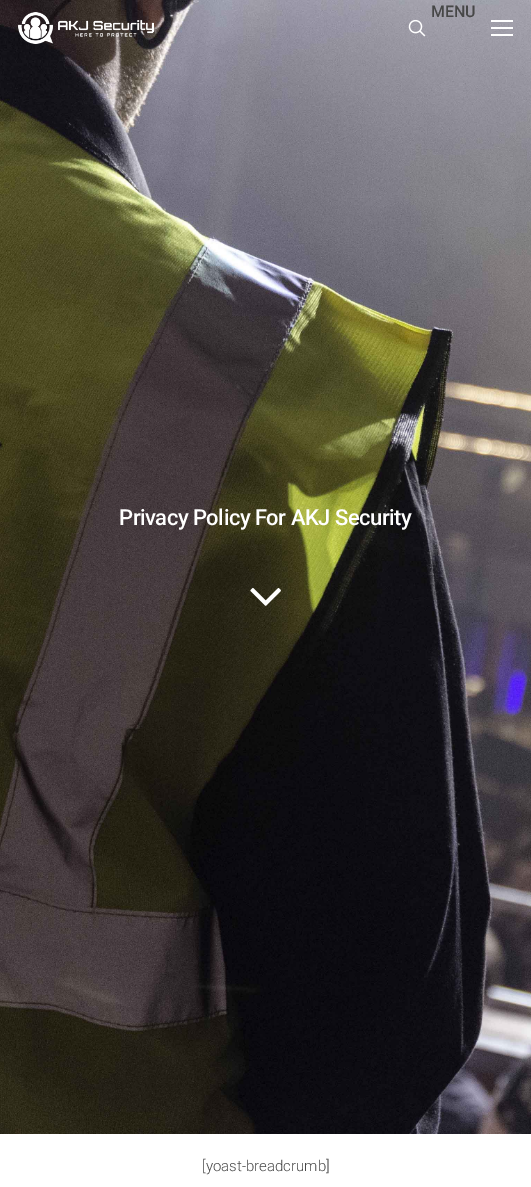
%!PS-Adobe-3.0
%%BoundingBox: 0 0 531 1187
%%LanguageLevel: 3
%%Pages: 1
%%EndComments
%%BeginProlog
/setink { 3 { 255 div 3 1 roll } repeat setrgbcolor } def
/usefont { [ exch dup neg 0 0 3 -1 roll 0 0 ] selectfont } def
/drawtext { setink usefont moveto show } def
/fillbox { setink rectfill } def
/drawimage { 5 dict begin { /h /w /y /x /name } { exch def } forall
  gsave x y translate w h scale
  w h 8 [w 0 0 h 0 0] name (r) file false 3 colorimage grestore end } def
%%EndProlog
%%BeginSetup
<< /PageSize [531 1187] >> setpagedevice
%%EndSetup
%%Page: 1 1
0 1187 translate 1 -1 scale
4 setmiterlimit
0 0 531 1187 255 255 255 fillbox
(assets/img3.rgb) 0 0 531 1134 drawimage
(assets/img1.rgb) 18 12 136 32 drawimage
(MENU) 431 17 /Roboto-Medium 16 71 71 71 drawtext
491 20 22 2 255 255 255 fillbox
491 34 22 2 255 255 255 fillbox
491 27 22 2 255 255 255 fillbox
(assets/img2.rgb) 408 19 18 18 drawimage
/Roboto-Medium 22 usefont
119 525 moveto -0.5 0 (Privacy Policy For AKJ Security) ashow
(assets/img4.rgb) 250 588 31 18 drawimage
([yoast-breadcrumb]) 202 1171 /Roboto-Light 15 71 71 71 drawtext
showpage
%%EOF
